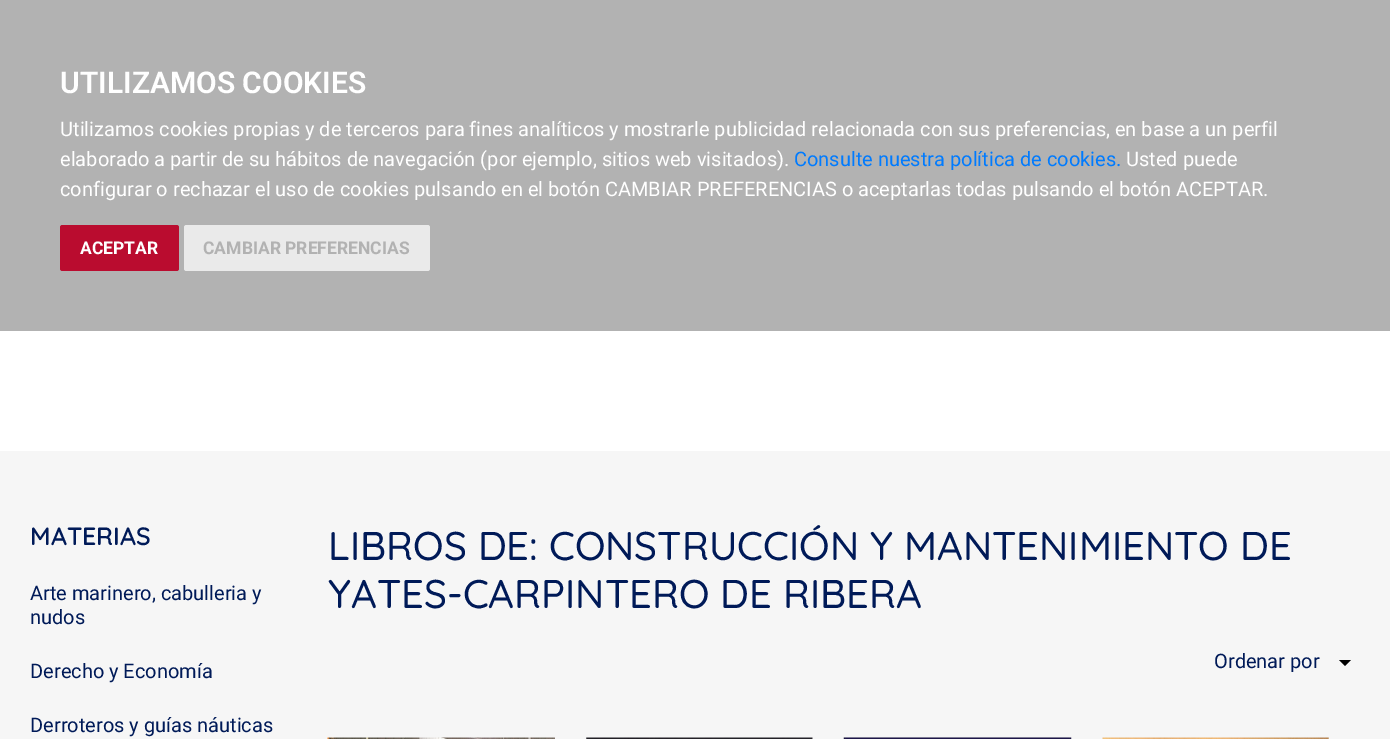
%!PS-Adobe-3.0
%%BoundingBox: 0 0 1390 739
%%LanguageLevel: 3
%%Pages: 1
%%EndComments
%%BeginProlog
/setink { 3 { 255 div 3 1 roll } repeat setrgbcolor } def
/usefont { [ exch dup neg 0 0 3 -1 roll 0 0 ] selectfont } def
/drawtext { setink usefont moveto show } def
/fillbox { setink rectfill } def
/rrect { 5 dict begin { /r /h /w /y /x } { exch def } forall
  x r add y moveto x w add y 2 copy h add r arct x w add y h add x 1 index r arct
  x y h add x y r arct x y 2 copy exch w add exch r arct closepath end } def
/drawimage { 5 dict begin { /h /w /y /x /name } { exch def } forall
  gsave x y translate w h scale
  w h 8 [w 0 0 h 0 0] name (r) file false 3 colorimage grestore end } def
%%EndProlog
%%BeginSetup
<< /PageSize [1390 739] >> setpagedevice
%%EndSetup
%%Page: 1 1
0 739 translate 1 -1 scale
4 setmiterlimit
0 0 1390 739 255 255 255 fillbox
0 0 1390 331 178 178 178 fillbox
(UTILIZAMOS COOKIES) 60 93 /Roboto-SemiBold 30 255 255 255 drawtext
(Utilizamos cookies propias y de terceros para fines analíticos y mostrarle publicidad relacionada con sus preferencias, en base a un perfil) 60 136 /Roboto-Regular 20 255 255 255 drawtext
(elaborado a partir de su hábitos de navegación \(por ejemplo, sitios web visitados\).) 60 166 /Roboto-Regular 20 255 255 255 drawtext
(Consulte nuestra política de cookies.) 794 166 /Roboto-Regular 20 0 123 255 drawtext
(Usted puede) 1126 166 /Roboto-Regular 20 255 255 255 drawtext
(configurar o rechazar el uso de cookies pulsando en el botón CAMBIAR PREFERENCIAS o aceptarlas todas pulsando el botón ACEPTAR.) 60 196 /Roboto-Regular 20 255 255 255 drawtext
186 12 47 setink
60 225 119 46 2.5 rrect fill
(ACEPTAR) 80 254 /Roboto-Bold 17.5 255 255 255 drawtext
234 234 234 setink
184 225 246 46 2.5 rrect fill
(CAMBIAR PREFERENCIAS) 203 254 /Roboto-Bold 17.5 178 178 178 drawtext
0 451 1390 288 246 246 246 fillbox
(MATERIAS) 30 545 /Quicksand-SemiBold 25 0 26 88 drawtext
(Arte marinero, cabulleria y) 30 600 /Roboto-Regular 20 0 26 88 drawtext
(nudos) 30 624 /Roboto-Regular 20 0 26 88 drawtext
(Derecho y Economía) 30 678 /Roboto-Regular 20 0 26 88 drawtext
(Derroteros y guías náuticas) 30 732 /Roboto-Regular 20 0 26 88 drawtext
(LIBROS DE: CONSTRUCCIÓN Y MANTENIMIENTO DE) 328 560 /Quicksand-Medium 40 0 26 88 drawtext
(YATES-CARPINTERO DE RIBERA) 328 608 /Quicksand-Medium 40 0 26 88 drawtext
0 0 0 setink
1339 660 moveto 1345 666 lineto 1351 660 lineto closepath fill
(Ordenar por) 1214 668 /Roboto-Regular 20 0 26 88 drawtext
(assets/img1.rgb) 327 737 228 2 drawimage
586 738 227 1 255 255 255 fillbox
(assets/img2.rgb) 586 737 227 2 drawimage
(assets/img3.rgb) 843 737 229 2 drawimage
(assets/img4.rgb) 1102 737 227 2 drawimage
showpage
%%EOF
